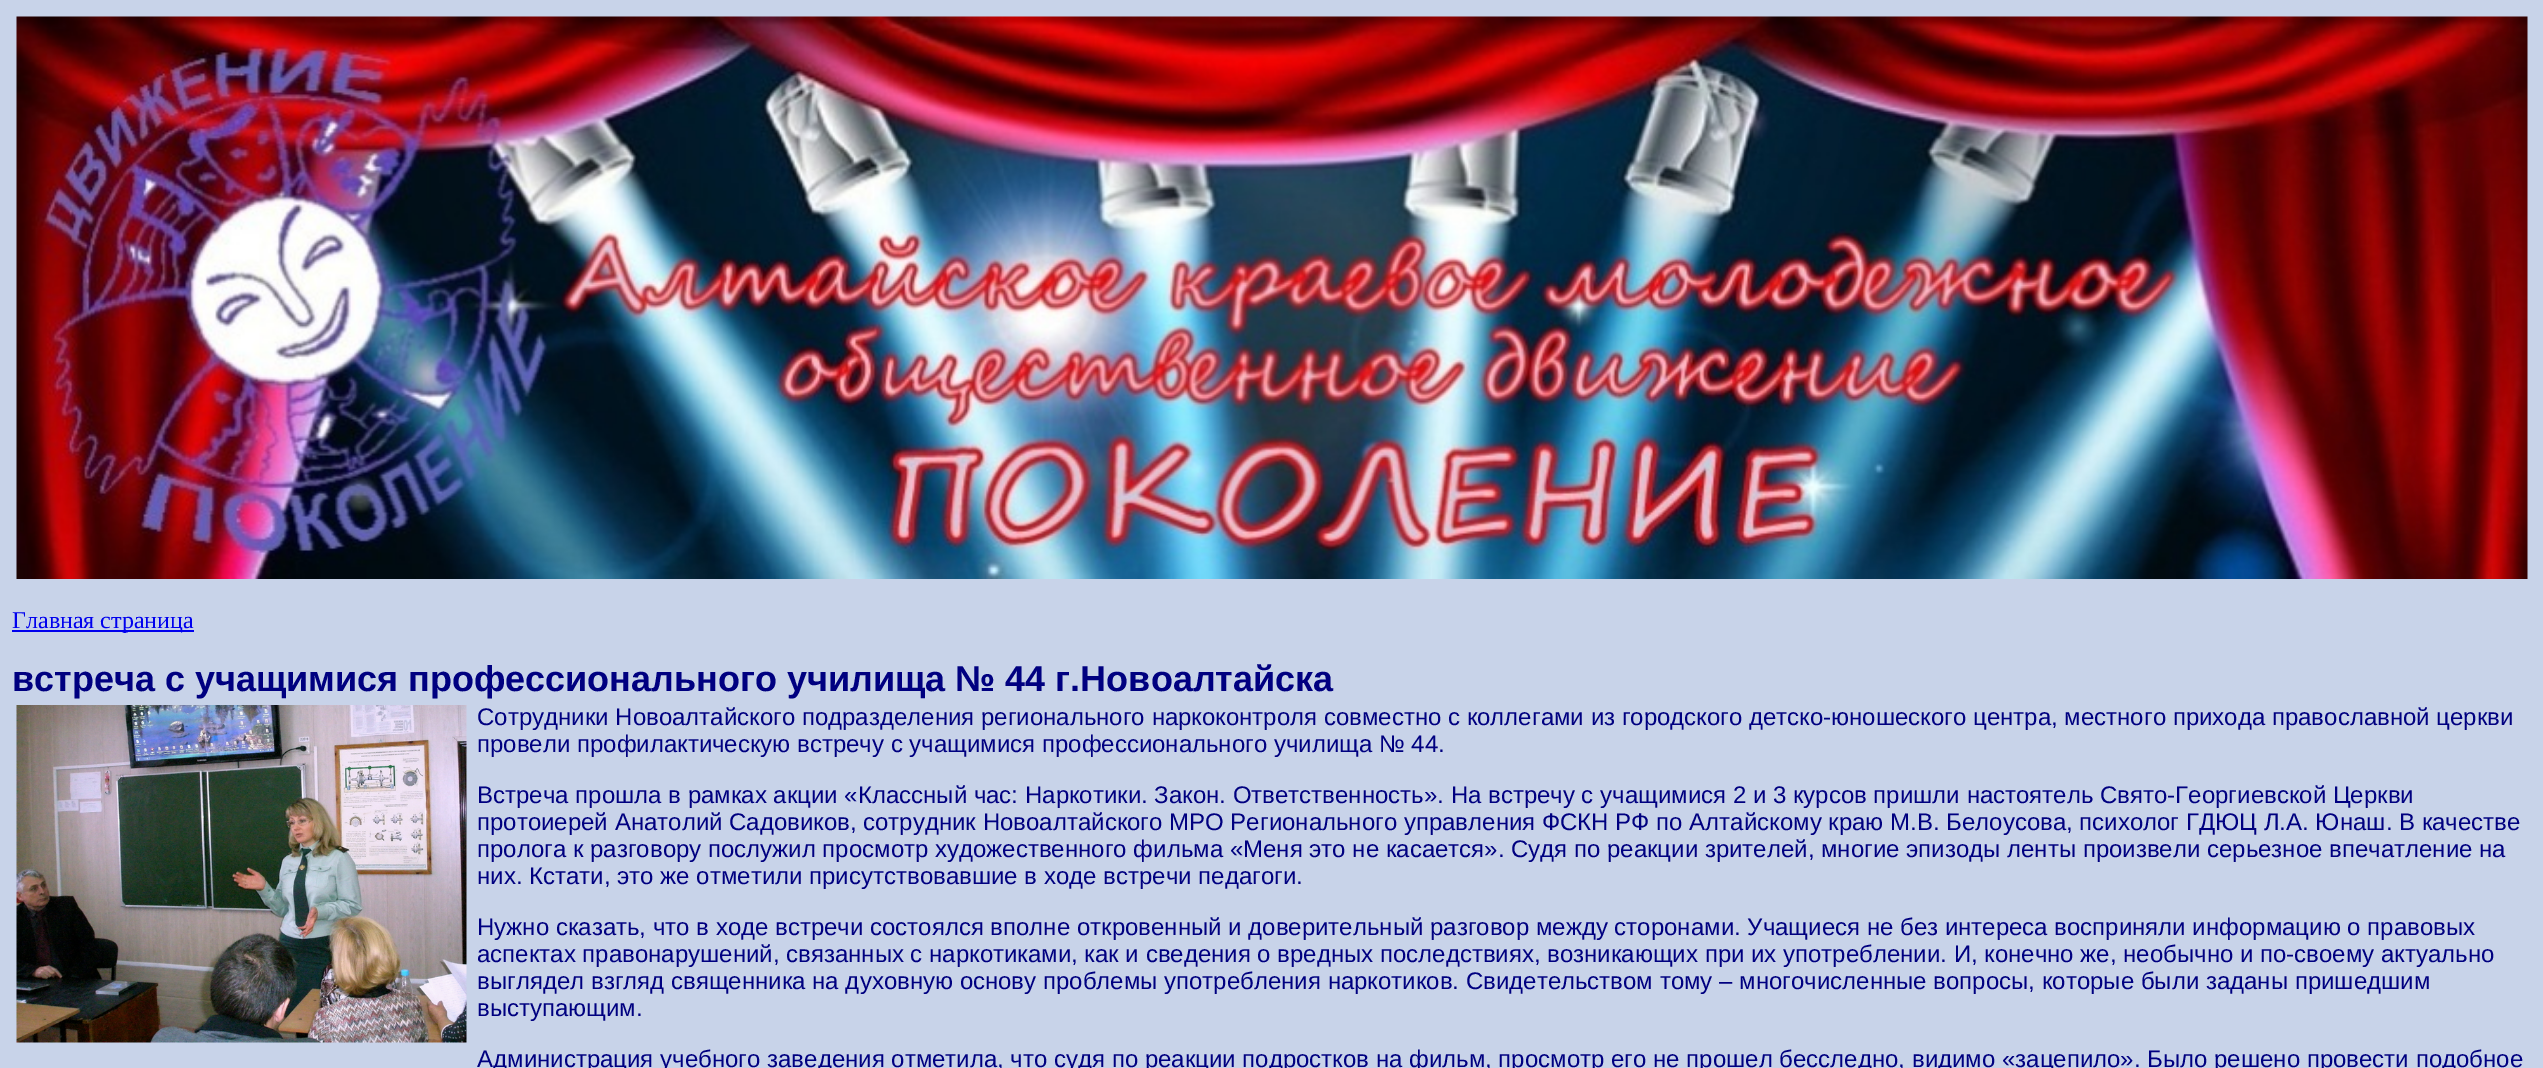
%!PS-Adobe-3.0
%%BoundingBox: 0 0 2543 1068
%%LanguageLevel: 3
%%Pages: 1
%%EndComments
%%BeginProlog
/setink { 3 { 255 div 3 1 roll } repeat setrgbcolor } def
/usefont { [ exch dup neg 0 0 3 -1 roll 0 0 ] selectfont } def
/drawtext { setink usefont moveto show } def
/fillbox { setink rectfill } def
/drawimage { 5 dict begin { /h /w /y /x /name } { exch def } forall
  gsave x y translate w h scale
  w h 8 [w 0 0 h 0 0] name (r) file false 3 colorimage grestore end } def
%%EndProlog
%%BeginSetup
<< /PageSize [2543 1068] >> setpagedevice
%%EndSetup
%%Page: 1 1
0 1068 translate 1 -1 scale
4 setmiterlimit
0 0 2543 1068 200 211 233 fillbox
(assets/img1.rgb) 16 16 2512 563 drawimage
12 630 182 2 0 0 238 fillbox
(Главная страница) 12 628 /LiberationSerif-Regular 24 0 0 238 drawtext
(встреча с учащимися профессионального училища № 44 г.Новоалтайска) 12 691 /LiberationSans-Bold 36 0 0 128 drawtext
(assets/img2.rgb) 16 705 451 338 drawimage
(Сотрудники Новоалтайского подразделения регионального наркоконтроля совместно с коллегами из городского детско-юношеского центра, местного прихода православной церкви) 477 725 /LiberationSans-Regular 24 0 0 128 drawtext
(провели профилактическую встречу с учащимися профессионального училища № 44.) 477 752 /LiberationSans-Regular 24 0 0 128 drawtext
(Встреча прошла в рамках акции «Классный час: Наркотики. Закон. Ответственность». На встречу с учащимися 2 и 3 курсов пришли настоятель Свято-Георгиевской Церкви) 477 803 /LiberationSans-Regular 24 0 0 128 drawtext
(протоиерей Анатолий Садовиков, сотрудник Новоалтайского МРО Регионального управления ФСКН РФ по Алтайскому краю М.В. Белоусова, психолог ГДЮЦ Л.А. Юнаш. В качестве) 477 830 /LiberationSans-Regular 24 0 0 128 drawtext
(пролога к разговору послужил просмотр художественного фильма «Меня это не касается». Судя по реакции зрителей, многие эпизоды ленты произвели серьезное впечатление на) 477 857 /LiberationSans-Regular 24 0 0 128 drawtext
(них. Кстати, это же отметили присутствовавшие в ходе встречи педагоги.) 477 884 /LiberationSans-Regular 24 0 0 128 drawtext
(Нужно сказать, что в ходе встречи состоялся вполне откровенный и доверительный разговор между сторонами. Учащиеся не без интереса восприняли информацию о правовых) 477 935 /LiberationSans-Regular 24 0 0 128 drawtext
(аспектах правонарушений, связанных с наркотиками, как и сведения о вредных последствиях, возникающих при их употреблении. И, конечно же, необычно и по-своему актуально) 477 962 /LiberationSans-Regular 24 0 0 128 drawtext
(выглядел взгляд священника на духовную основу проблемы употребления наркотиков. Свидетельством тому – многочисленные вопросы, которые были заданы пришедшим) 477 989 /LiberationSans-Regular 24 0 0 128 drawtext
(выступающим.) 477 1016 /LiberationSans-Regular 24 0 0 128 drawtext
(Администрация учебного заведения отметила, что судя по реакции подростков на фильм, просмотр его не прошел бесследно, видимо «зацепило». Было решено провести подобное) 477 1067 /LiberationSans-Regular 24 0 0 128 drawtext
showpage
%%EOF
